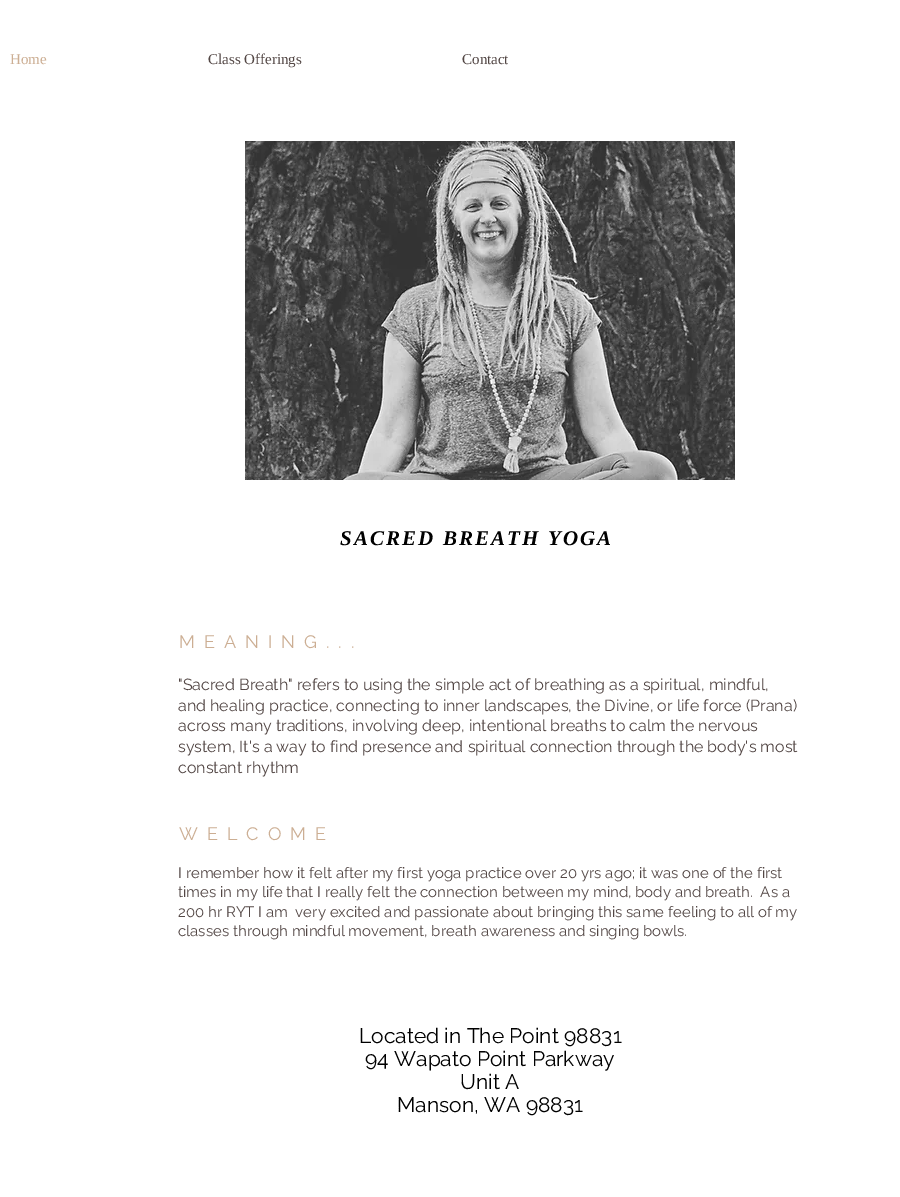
%!PS-Adobe-3.0
%%BoundingBox: 0 0 900 1197
%%LanguageLevel: 3
%%Pages: 1
%%EndComments
%%BeginProlog
/setink { 3 { 255 div 3 1 roll } repeat setrgbcolor } def
/usefont { [ exch dup neg 0 0 3 -1 roll 0 0 ] selectfont } def
/drawtext { setink usefont moveto show } def
/fillbox { setink rectfill } def
/drawimage { 5 dict begin { /h /w /y /x /name } { exch def } forall
  gsave x y translate w h scale
  w h 8 [w 0 0 h 0 0] name (r) file false 3 colorimage grestore end } def
%%EndProlog
%%BeginSetup
<< /PageSize [900 1197] >> setpagedevice
%%EndSetup
%%Page: 1 1
0 1197 translate 1 -1 scale
4 setmiterlimit
0 0 900 1197 255 255 255 fillbox
(Home) 10 64 /LiberationSerif-Regular 15 204 174 147 drawtext
(Class Offerings) 208 64 /LiberationSerif-Regular 15 83 71 69 drawtext
(Contact) 462 64 /LiberationSerif-Regular 15 83 71 69 drawtext
(assets/img1.rgb) 245 141 490 339 drawimage
/LiberationSerif-BoldItalic 21 usefont
0 0 0 setink
340 545 moveto 2.1 0 (SACRED BREATH YOGA) ashow
/Raleway-Regular 18 usefont
204 174 147 setink
179 648 moveto 9 0 (MEANING...) ashow
("Sacred Breath" refers to using the simple act of breathing as a spiritual, mindful,) 178 690 /Raleway-Regular 16 83 71 69 drawtext
(and healing practice, connecting to inner landscapes, the Divine, or life force \(Prana\)) 178 711 /Raleway-Regular 16 83 71 69 drawtext
(across many traditions, involving deep, intentional breaths to calm the nervous) 178 731 /Raleway-Regular 16 83 71 69 drawtext
(system, It's a way to find presence and spiritual connection through the body's most) 178 752 /Raleway-Regular 16 83 71 69 drawtext
(constant rhythm) 178 773 /Raleway-Regular 16 83 71 69 drawtext
/Raleway-Regular 18 usefont
204 174 147 setink
179 840 moveto 9 0 (WELCOME) ashow
(I remember how it felt after my first yoga practice over 20 yrs ago; it was one of the first) 178 878 /Raleway-Regular 15 83 71 69 drawtext
(times in my life that I really felt the connection between my mind, body and breath.  As a) 178 897 /Raleway-Regular 15 83 71 69 drawtext
(200 hr RYT I am  very excited and passionate about bringing this same feeling to all of my) 178 917 /Raleway-Regular 15 83 71 69 drawtext
(classes through mindful movement, breath awareness and singing bowls.) 178 936 /Raleway-Regular 15 83 71 69 drawtext
(Located in The Point 98831) 359 1043 /Raleway-Regular 21 0 0 0 drawtext
(94 Wapato Point Parkway) 365 1066 /Raleway-Regular 21 0 0 0 drawtext
(Unit A) 460 1089 /Raleway-Regular 21 0 0 0 drawtext
(Manson, WA 98831) 397 1112 /Raleway-Regular 21 0 0 0 drawtext
showpage
%%EOF
